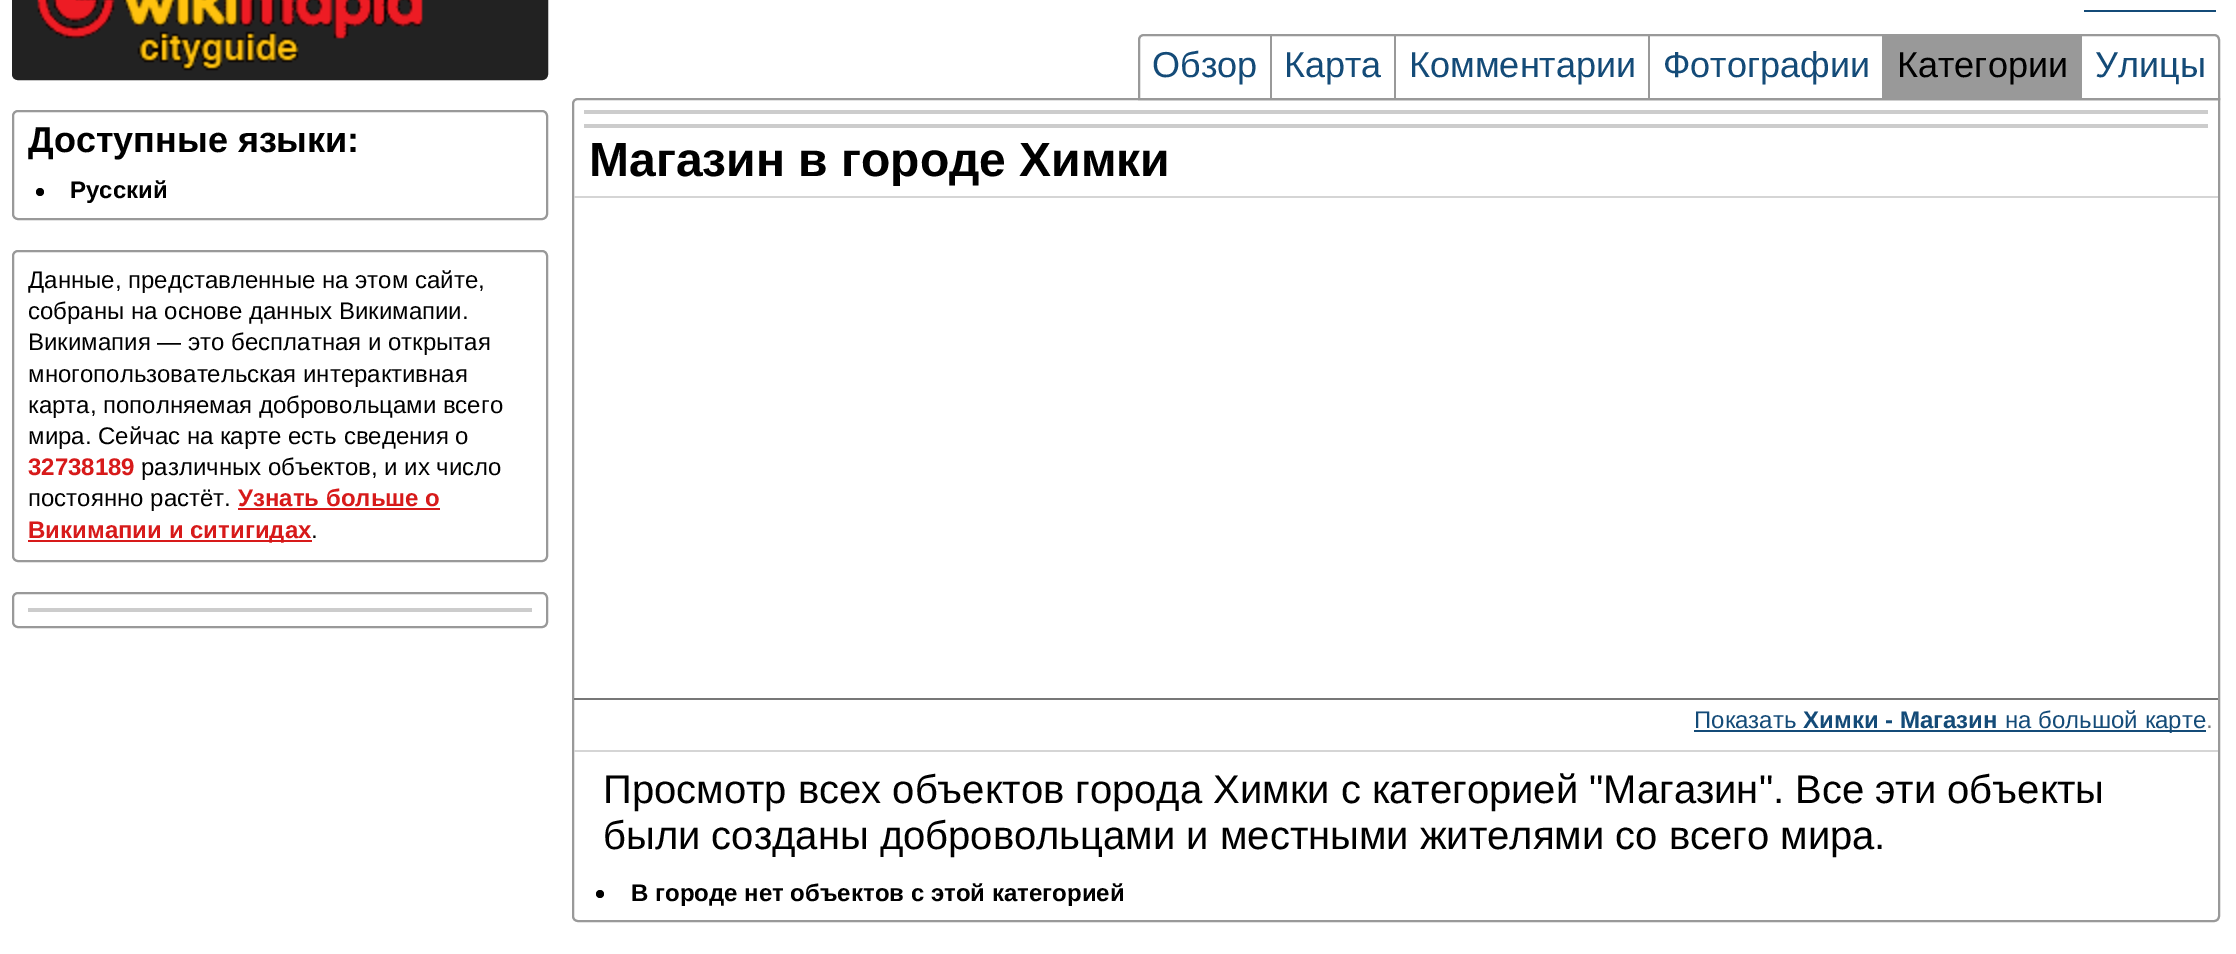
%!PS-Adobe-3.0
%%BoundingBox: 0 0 2236 954
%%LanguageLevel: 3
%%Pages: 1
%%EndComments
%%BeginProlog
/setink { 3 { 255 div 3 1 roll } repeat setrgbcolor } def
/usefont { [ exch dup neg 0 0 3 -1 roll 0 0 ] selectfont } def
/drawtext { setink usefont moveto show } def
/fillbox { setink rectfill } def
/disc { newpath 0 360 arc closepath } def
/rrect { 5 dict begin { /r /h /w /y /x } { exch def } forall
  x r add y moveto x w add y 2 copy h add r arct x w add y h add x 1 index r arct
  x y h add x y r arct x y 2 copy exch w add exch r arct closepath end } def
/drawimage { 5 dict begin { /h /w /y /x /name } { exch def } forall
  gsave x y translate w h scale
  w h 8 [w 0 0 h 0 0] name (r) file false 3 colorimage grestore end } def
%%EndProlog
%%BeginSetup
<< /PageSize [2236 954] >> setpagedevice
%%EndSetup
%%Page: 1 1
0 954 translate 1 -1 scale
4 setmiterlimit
0 0 2236 954 255 255 255 fillbox
2084 10 132 2 20 75 120 fillbox
153 153 153 setink
2 setlinewidth
1144 35 moveto 2214 35 lineto 2217 35 2219 37 2219 40 curveto 2219 99 lineto 1139 99 lineto 1139 40 lineto 1139 37 1141 35 1144 35 curveto closepath stroke
1270 36 2 62 153 153 153 fillbox
(Обзор) 1152 77 /LiberationSans-Regular 36 20 75 120 drawtext
1394 36 2 62 153 153 153 fillbox
(Карта) 1284 77 /LiberationSans-Regular 36 20 75 120 drawtext
1648 36 2 62 153 153 153 fillbox
(Комментарии) 1409 77 /LiberationSans-Regular 36 20 75 120 drawtext
1882 36 200 62 153 153 153 fillbox
(Фотографии) 1663 77 /LiberationSans-Regular 36 20 75 120 drawtext
(Категории) 1897 77 /LiberationSans-Regular 36 0 0 0 drawtext
(Улицы) 2095 77 /LiberationSans-Regular 36 20 75 120 drawtext
34 34 34 setink
13 -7 moveto 547 -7 lineto 547 74 lineto 547 77 545 79 542 79 curveto 18 79 lineto 15 79 13 77 13 74 curveto closepath gsave fill grestore
stroke
(assets/img1.rgb) 37 0 386 71 drawimage
153 153 153 setink
13 111 534 108 5 rrect stroke
(Доступные языки:) 28 152 /LiberationSans-Bold 36 0 0 0 drawtext
40 192 4 disc fill
(Русский) 70 198 /LiberationSans-Bold 24 0 0 0 drawtext
153 153 153 setink
13 251 534 310 5 rrect stroke
(Данные, представленные на этом сайте,) 28 288 /LiberationSans-Regular 24 0 0 0 drawtext
(собраны на основе данных Викимапии.) 28 319 /LiberationSans-Regular 24 0 0 0 drawtext
(Викимапия — это бесплатная и открытая) 28 350 /LiberationSans-Regular 24 0 0 0 drawtext
(многопользовательская интерактивная) 28 382 /LiberationSans-Regular 24 0 0 0 drawtext
(карта, пополняемая добровольцами всего) 28 413 /LiberationSans-Regular 24 0 0 0 drawtext
(мира. Сейчас на карте есть сведения о) 28 444 /LiberationSans-Regular 24 0 0 0 drawtext
(32738189) 28 475 /LiberationSans-Bold 24 215 26 26 drawtext
(различных объектов, и их число) 141 475 /LiberationSans-Regular 24 0 0 0 drawtext
(постоянно растёт.) 28 506 /LiberationSans-Regular 24 0 0 0 drawtext
(Узнать больше о) 238 506 /LiberationSans-Bold 24 215 26 26 drawtext
238 508 202 2 215 26 26 fillbox
28 540 284 2 215 26 26 fillbox
(Викимапии и ситигидах) 28 538 /LiberationSans-Bold 24 215 26 26 drawtext
(.) 311 538 /LiberationSans-Regular 24 0 0 0 drawtext
153 153 153 setink
13 593 534 34 5 rrect stroke
28 608 504 4 204 204 204 fillbox
153 153 153 setink
578 99 moveto 2219 99 lineto 2219 916 lineto 2219 919 2217 921 2214 921 curveto 578 921 lineto 575 921 573 919 573 916 curveto 573 104 lineto 573 101 575 99 578 99 curveto closepath stroke
584 110 1624 4 204 204 204 fillbox
584 124 1624 4 204 204 204 fillbox
(Магазин в городе Химки) 589 176 /LiberationSans-Bold 48 0 0 0 drawtext
574 196 1644 2 213 213 213 fillbox
574 698 1644 2 119 119 119 fillbox
(Показать) 1694 728 /LiberationSans-Regular 24 20 75 120 drawtext
(Химки - Магазин) 1803 728 /LiberationSans-Bold 24 20 75 120 drawtext
1694 730 512 2 20 75 120 fillbox
(на большой карте) 2005 728 /LiberationSans-Regular 24 20 75 120 drawtext
(.) 2206 728 /LiberationSans-Regular 24 119 119 119 drawtext
574 750 1644 2 213 213 213 fillbox
(Просмотр всех объектов города Химки с категорией "Магазин". Все эти объекты) 603 803 /LiberationSans-Regular 40 0 0 0 drawtext
(были созданы добровольцами и местными жителями со всего мира.) 603 849 /LiberationSans-Regular 40 0 0 0 drawtext
600 894 4 disc fill
(В городе нет объектов с этой категорией) 631 901 /LiberationSans-Bold 24 0 0 0 drawtext
showpage
%%EOF
